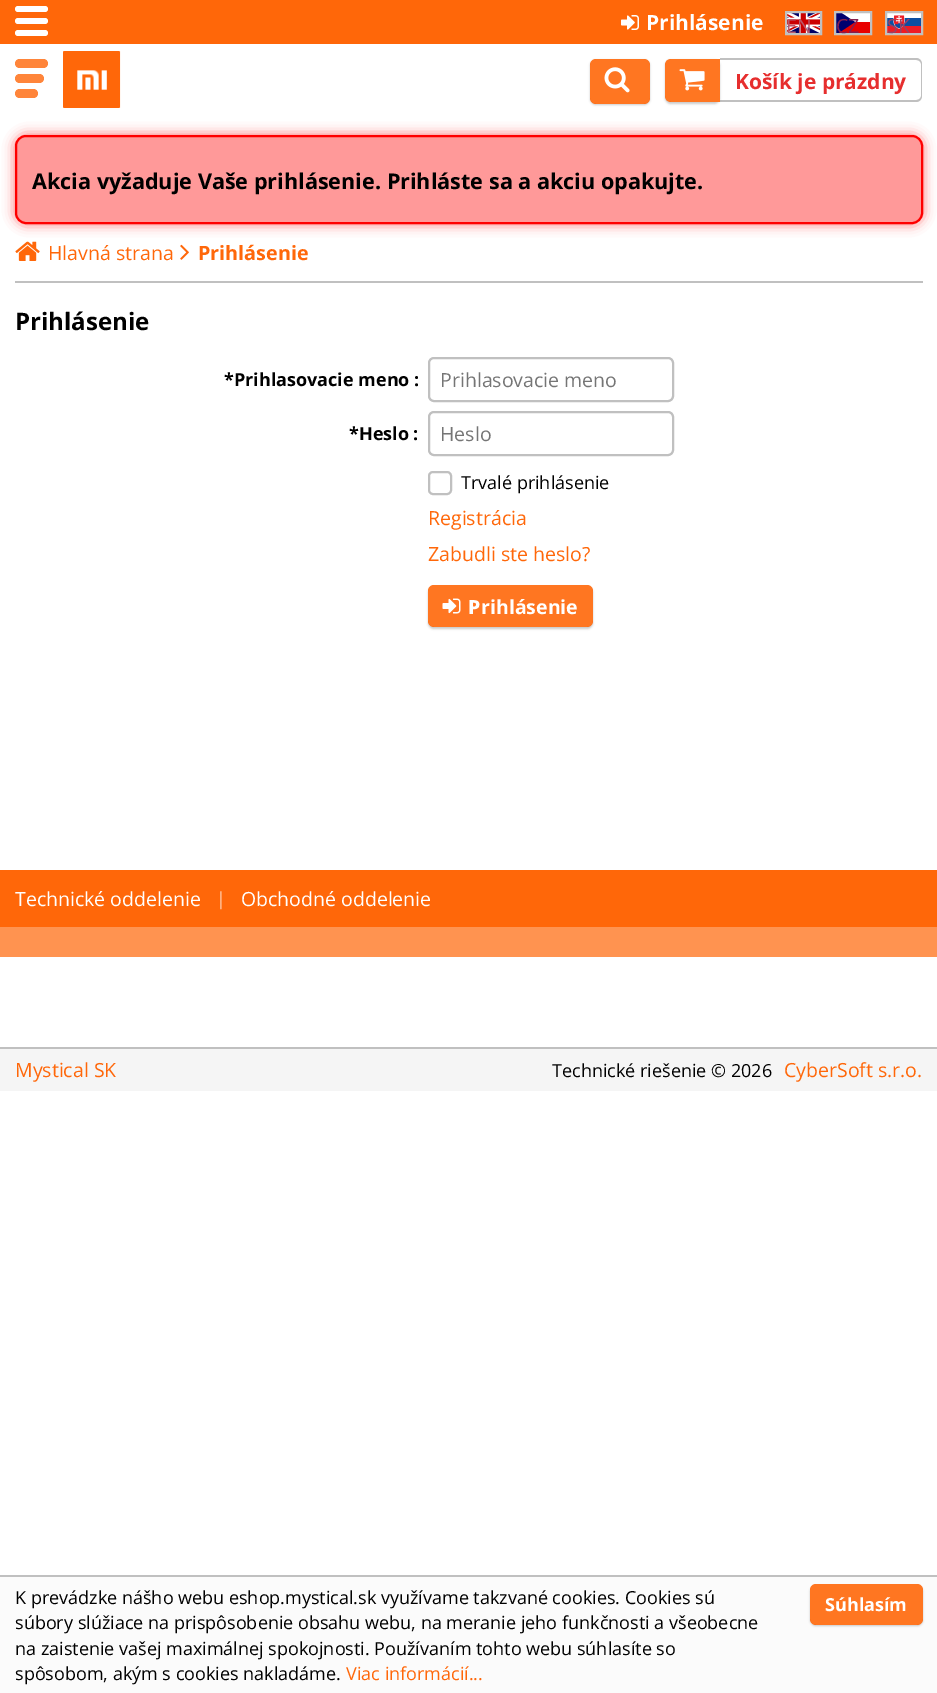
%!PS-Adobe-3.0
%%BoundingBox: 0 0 937 1693
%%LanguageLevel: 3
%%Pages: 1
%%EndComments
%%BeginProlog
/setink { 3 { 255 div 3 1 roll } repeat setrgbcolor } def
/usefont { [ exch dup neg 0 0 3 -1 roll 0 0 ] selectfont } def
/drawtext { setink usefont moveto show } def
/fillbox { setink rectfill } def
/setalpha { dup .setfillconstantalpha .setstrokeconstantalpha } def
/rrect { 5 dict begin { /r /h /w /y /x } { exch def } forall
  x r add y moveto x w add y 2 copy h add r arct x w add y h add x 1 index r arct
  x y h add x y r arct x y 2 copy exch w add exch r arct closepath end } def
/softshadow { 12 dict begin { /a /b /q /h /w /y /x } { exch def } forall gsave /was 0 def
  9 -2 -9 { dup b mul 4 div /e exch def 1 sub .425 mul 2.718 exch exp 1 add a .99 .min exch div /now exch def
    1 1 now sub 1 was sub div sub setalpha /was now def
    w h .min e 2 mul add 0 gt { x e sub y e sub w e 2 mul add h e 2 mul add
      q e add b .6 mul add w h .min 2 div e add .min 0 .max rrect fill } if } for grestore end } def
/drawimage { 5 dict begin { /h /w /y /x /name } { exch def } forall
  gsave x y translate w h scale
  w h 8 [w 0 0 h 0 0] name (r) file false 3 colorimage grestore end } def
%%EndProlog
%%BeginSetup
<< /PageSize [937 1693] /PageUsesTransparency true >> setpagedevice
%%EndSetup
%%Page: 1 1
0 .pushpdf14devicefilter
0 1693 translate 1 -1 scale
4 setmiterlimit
0 0 937 1693 255 255 255 fillbox
0 0 937 44 255 103 9 fillbox
255 255 255 setink
15 6 33 6 3 rrect fill
15 18 33 6 3 rrect fill
15 30 33 6 3 rrect fill
(assets/img1.rgb) 621 15 18 15 drawimage
(Prihlásenie) 646 30 /OpenSans-Bold 21 255 255 255 drawtext
(assets/img2.rgb) 787 13 33 20 drawimage
192 192 192 setink
2 setlinewidth
786 12 35 22 rectstroke
(EN) 786 33 /OpenSans-Regular 19.5 185 90 109 drawtext
838 22 32 11 232 0 0 fillbox
841 13 29 9 255 255 255 fillbox
gsave
836 11 34 24 rectclip
0 0 111 setink
835.5 9 moveto 855 22 lineto 835.5 35 lineto closepath eofill
grestore
192 192 192 setink
835 12 36 22 rectstroke
(CZ) 836 33 /OpenSans-Regular 19.5 134 30 78 drawtext
(assets/img3.rgb) 887 13 34 20 drawimage
192 192 192 setink
886 12 36 22 rectstroke
(SK) 887 33 /OpenSans-Regular 19.5 152 65 101 drawtext
255 133 58 setink
15 59 33 9 4.5 rrect fill
15 74 29 9 4.5 rrect fill
15 89 23 9 4.5 rrect fill
(assets/img4.rgb) 63 51 58 57 drawimage
gsave
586 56 moveto 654 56 lineto 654 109 lineto 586 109 lineto closepath 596 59 moveto 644 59 lineto 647.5 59 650 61.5 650 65 curveto 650 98 lineto 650 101.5 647.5 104 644 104 curveto 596 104 lineto 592.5 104 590 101.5 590 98 curveto 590 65 lineto 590 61.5 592.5 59 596 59 curveto closepath eoclip newpath
0 0 0 setink
590 60 60 45 6 1 0.2 softshadow
grestore
0.9 setalpha
255 103 9 setink
590 59 60 45 6 rrect fill
1 setalpha
(assets/img5.rgb) 604 67 26 26 drawimage
192 192 192 setink
720 58 moveto 916 58 lineto 920 58 922 61 922 64 curveto 922 96 lineto 922 99 920 102 916 102 curveto 720 102 lineto closepath 720 60 moveto 916 60 lineto 919 60 921 62 921 64 curveto 921 96 lineto 921 98 919 100 916 100 curveto 720 100 lineto closepath eofill
gsave
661 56 moveto 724 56 lineto 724 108 lineto 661 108 lineto closepath 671 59 moveto 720 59 lineto 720 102 lineto 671 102 lineto 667.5 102 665 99.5 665 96 curveto 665 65 lineto 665 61.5 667.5 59 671 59 curveto closepath eoclip newpath
0 0 0 setink
665 60 55 44 6 1 0.2 softshadow
grestore
0.9 setalpha
255 103 9 setink
671 59 moveto 720 59 lineto 720 102 lineto 671 102 lineto 667.5 102 665 99.5 665 96 curveto 665 65 lineto 665 61.5 667.5 59 671 59 curveto closepath fill
1 setalpha
(assets/img6.rgb) 679 69 26 22 drawimage
(Košík je prázdny) 735 89 /OpenSans-Bold 21 230 46 46 drawtext
255 0 0 setink
15 135 908 89 11 6 0.6 softshadow
255 153 153 setink
16 136 906 87 10 rrect gsave fill grestore
255 0 0 setink
stroke
(Akcia vyžaduje Vaše prihlásenie. Prihláste sa a akciu opakujte.) 32 189 /OpenSans-Bold 21.6 0 0 0 drawtext
15 281 908 2 192 192 192 fillbox
(assets/img7.rgb) 15 241 25 20 drawimage
(Hlavná strana) 48 260 /OpenSans-Regular 19.5 255 103 9 drawtext
(assets/img8.rgb) 180 244 9 16 drawimage
(Prihlásenie) 198 260 /OpenSans-Bold 19.75 255 103 9 drawtext
(Prihlásenie) 15 330 /OpenSans-Bold 24 0 0 0 drawtext
(*Prihlasovacie meno :) 224 386 /OpenSans-Bold 18 0 0 0 drawtext
192 192 192 setink
429 358 244 43 5 rrect stroke
(Prihlasovacie meno) 440 387 /OpenSans-Regular 19.5 117 117 117 drawtext
(*Heslo :) 349 440 /OpenSans-Bold 18 0 0 0 drawtext
192 192 192 setink
429 412 244 43 5 rrect stroke
(Heslo) 440 441 /OpenSans-Regular 19.5 117 117 117 drawtext
192 192 192 setink
429 472 22 22 4 rrect stroke
(Trvalé prihlásenie) 461 489 /OpenSans-Regular 18 0 0 0 drawtext
(Registrácia) 428 525 /OpenSans-Regular 19.5 255 103 9 drawtext
(Zabudli ste heslo?) 428 561 /OpenSans-Regular 19.5 255 103 9 drawtext
gsave
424 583 moveto 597 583 lineto 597 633 lineto 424 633 lineto closepath 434 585 moveto 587 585 lineto 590.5 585 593 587.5 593 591 curveto 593 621 lineto 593 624.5 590.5 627 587 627 curveto 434 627 lineto 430.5 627 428 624.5 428 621 curveto 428 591 lineto 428 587.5 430.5 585 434 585 curveto closepath eoclip newpath
0 0 0 setink
428 587 165 42 6 1 0.2 softshadow
grestore
0.9 setalpha
428 585 165 42 6 rrect fill
1 setalpha
(assets/img9.rgb) 442 598 19 16 drawimage
(P) 468 614 /NotoSans-ExtraBold 19.5 255 255 255 drawtext
(rihlásenie) 481 614 /OpenSans-Bold 19.5 255 255 255 drawtext
0 870 937 57 255 103 9 fillbox
(Technické oddelenie) 15 906 /OpenSans-Regular 19.5 255 255 255 drawtext
(|) 216 905 /OpenSans-Regular 18 255 204 173 drawtext
(Obchodné oddelenie) 241 906 /OpenSans-Regular 19.5 255 255 255 drawtext
0 927 937 30 255 147 80 fillbox
0 1049 937 42 245 245 245 fillbox
0 1047 937 2 192 192 192 fillbox
(Mystical SK) 15 1077 /OpenSans-Regular 19.5 255 103 9 drawtext
(Technické riešenie © 2026) 552 1077 /OpenSans-Regular 18 0 0 0 drawtext
(CyberSoft s.r.o.) 784 1077 /OpenSans-Regular 19.5 255 103 9 drawtext
0 1577 937 116 251 251 251 fillbox
0 1575 937 2 192 192 192 fillbox
(K prevádzke nášho webu eshop.mystical.sk využívame takzvané cookies. Cookies sú) 15 1604 /OpenSans-Regular 18 0 0 0 drawtext
(súbory slúžiace na prispôsobenie obsahu webu, na meranie jeho funkčnosti a všeobecne) 15 1629 /OpenSans-Regular 18 0 0 0 drawtext
(na zaistenie vašej maximálnej spokojnosti. Používaním tohto webu súhlasíte so) 15 1655 /OpenSans-Regular 18 0 0 0 drawtext
(spôsobom, akým s cookies nakladáme.) 15 1680 /OpenSans-Regular 18 0 0 0 drawtext
(Viac informácií...) 346 1680 /OpenSans-Regular 18 255 103 9 drawtext
gsave
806 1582 moveto 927 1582 lineto 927 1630 lineto 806 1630 lineto closepath 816 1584 moveto 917 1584 lineto 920.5 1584 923 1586.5 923 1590 curveto 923 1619 lineto 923 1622.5 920.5 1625 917 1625 curveto 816 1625 lineto 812.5 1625 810 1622.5 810 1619 curveto 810 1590 lineto 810 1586.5 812.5 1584 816 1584 curveto closepath eoclip newpath
0 0 0 setink
810 1586 113 40 6 1 0.2 softshadow
grestore
0.9 setalpha
810 1584 113 41 6 rrect fill
1 setalpha
(S) 825 1611 /NotoSans-Bold 18 255 255 255 drawtext
(úhlasím) 835 1611 /OpenSans-Bold 18 255 255 255 drawtext
.poppdf14devicefilter showpage
%%EOF
